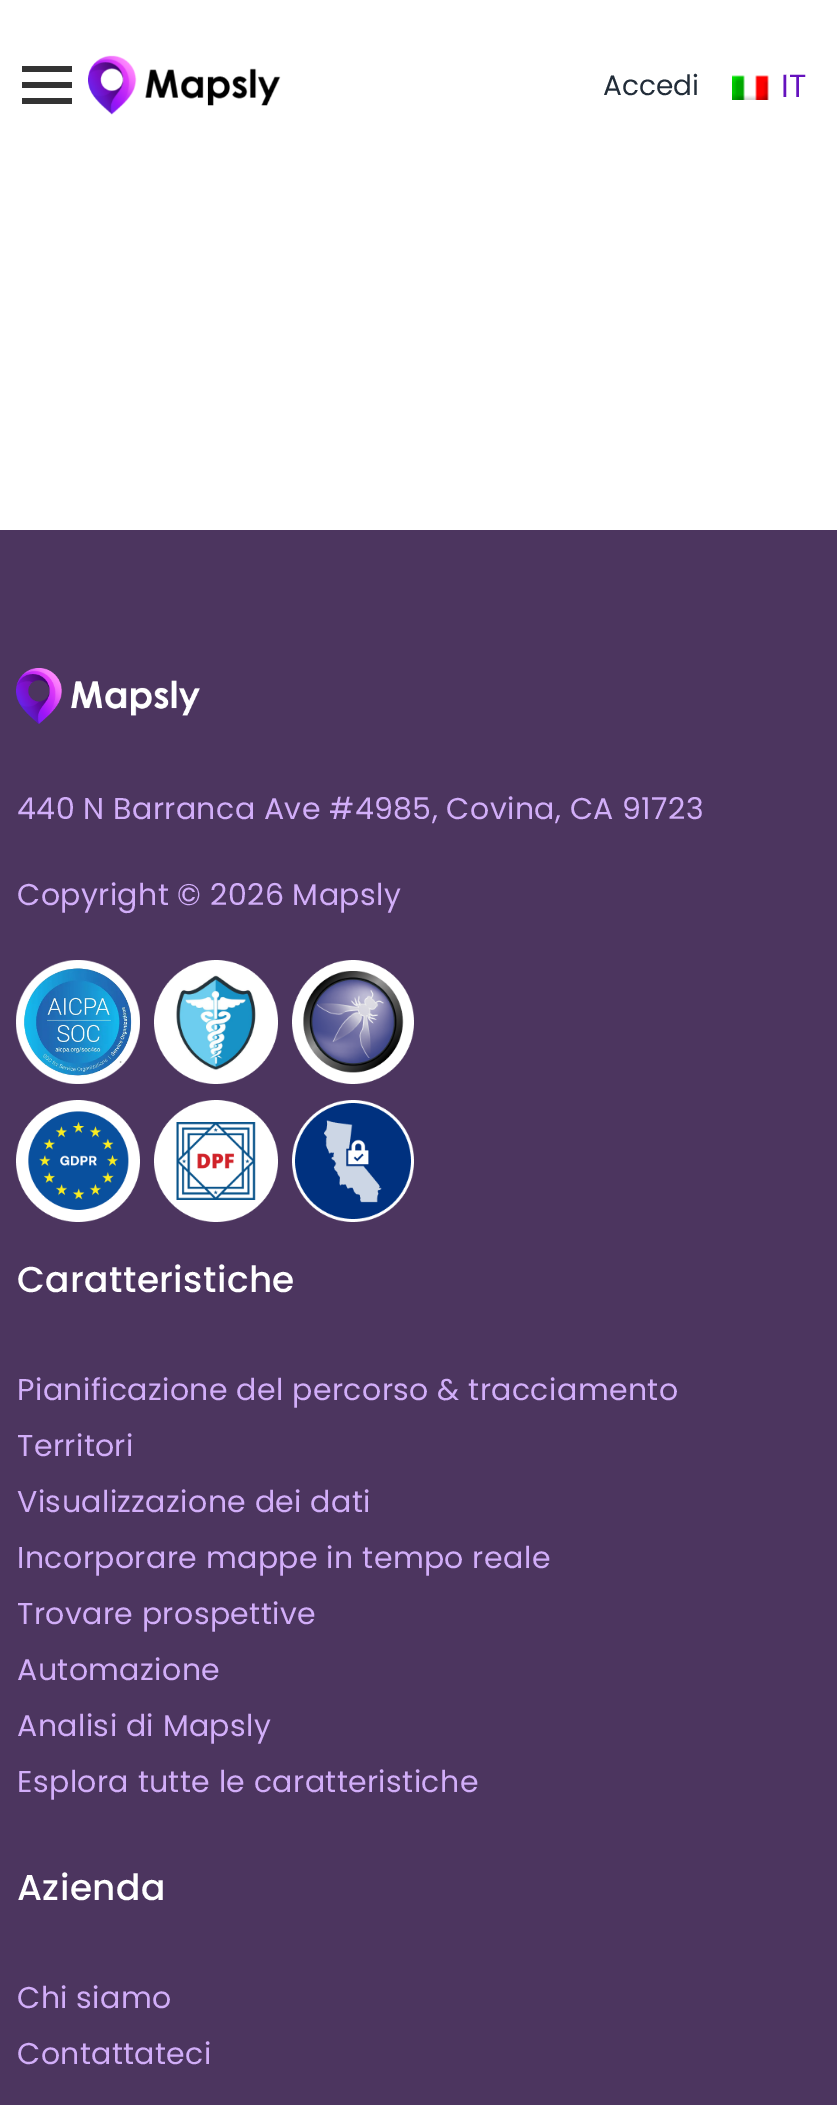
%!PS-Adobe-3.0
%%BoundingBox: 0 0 837 2105
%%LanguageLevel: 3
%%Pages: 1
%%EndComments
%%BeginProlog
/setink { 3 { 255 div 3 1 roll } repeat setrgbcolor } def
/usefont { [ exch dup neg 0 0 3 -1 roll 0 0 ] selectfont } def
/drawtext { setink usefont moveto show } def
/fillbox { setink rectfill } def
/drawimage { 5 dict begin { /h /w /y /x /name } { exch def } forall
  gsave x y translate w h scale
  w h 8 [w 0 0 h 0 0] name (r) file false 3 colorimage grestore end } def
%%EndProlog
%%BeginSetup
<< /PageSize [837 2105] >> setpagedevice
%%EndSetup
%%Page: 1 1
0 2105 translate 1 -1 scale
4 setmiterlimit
0 0 837 2105 255 255 255 fillbox
22 82 50 6 51 51 51 fillbox
22 66 50 6 51 51 51 fillbox
22 98 50 6 51 51 51 fillbox
(assets/img1.rgb) 88 55 193 60 drawimage
(Accedi) 603 95 /Poppins-Regular 28 34 45 57 drawtext
(assets/img2.rgb) 732 75 37 25 drawimage
(IT) 781 97 /Poppins-Regular 32 101 18 190 drawtext
0 530 837 1575 76 53 95 fillbox
(assets/img3.rgb) 16 668 184 56 drawimage
/Poppins-Regular 30 usefont
210 174 249 setink
17 819 moveto 0.4 0 (440 N Barranca Ave #4985, Covina, CA 91723) ashow
17 905 moveto 0.4 0 (Copyright © 2026 Mapsly) ashow
(assets/img4.rgb) 16 960 124 124 drawimage
(assets/img5.rgb) 154 960 124 124 drawimage
(assets/img6.rgb) 292 960 122 124 drawimage
(assets/img7.rgb) 16 1100 124 122 drawimage
(assets/img8.rgb) 154 1100 124 122 drawimage
(assets/img9.rgb) 292 1100 122 122 drawimage
/Poppins-Medium 36 usefont
255 255 255 setink
17 1292 moveto 0.4 0 (Caratteristiche) ashow
/Poppins-Regular 30 usefont
210 174 249 setink
17 1400 moveto 0.4 0 (Pianificazione del percorso & tracciamento) ashow
17 1456 moveto 0.4 0 (Territori) ashow
17 1512 moveto 0.4 0 (Visualizzazione dei dati) ashow
17 1568 moveto 0.4 0 (Incorporare mappe in tempo reale) ashow
17 1624 moveto 0.4 0 (Trovare prospettive) ashow
17 1680 moveto 0.4 0 (Automazione) ashow
17 1736 moveto 0.4 0 (Analisi di Mapsly) ashow
17 1792 moveto 0.4 0 (Esplora tutte le caratteristiche) ashow
/Poppins-Medium 36 usefont
255 255 255 setink
17 1900 moveto 0.4 0 (Azienda) ashow
/Poppins-Regular 30 usefont
210 174 249 setink
17 2008 moveto 0.4 0 (Chi siamo) ashow
17 2064 moveto 0.4 0 (Contattateci) ashow
showpage
%%EOF
